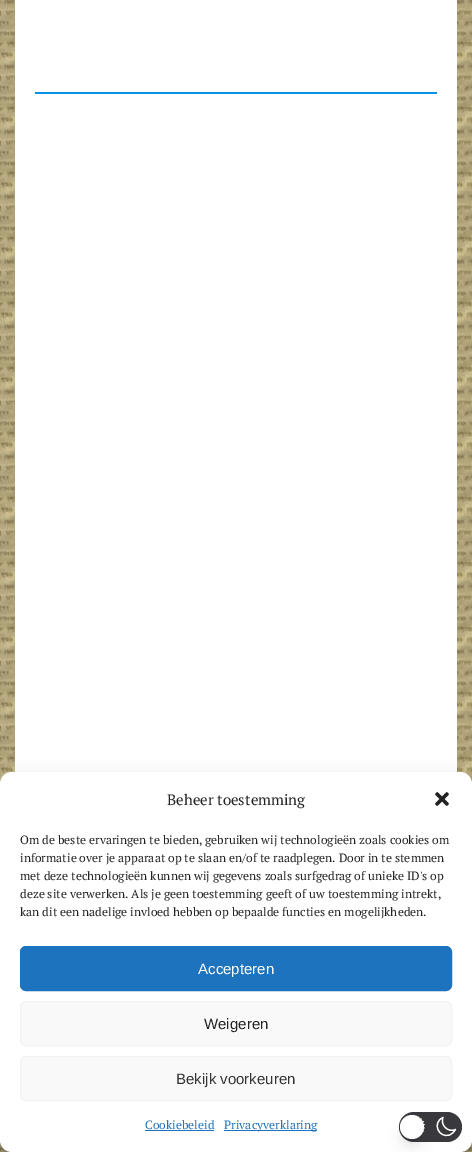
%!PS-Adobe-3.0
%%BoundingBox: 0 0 472 1152
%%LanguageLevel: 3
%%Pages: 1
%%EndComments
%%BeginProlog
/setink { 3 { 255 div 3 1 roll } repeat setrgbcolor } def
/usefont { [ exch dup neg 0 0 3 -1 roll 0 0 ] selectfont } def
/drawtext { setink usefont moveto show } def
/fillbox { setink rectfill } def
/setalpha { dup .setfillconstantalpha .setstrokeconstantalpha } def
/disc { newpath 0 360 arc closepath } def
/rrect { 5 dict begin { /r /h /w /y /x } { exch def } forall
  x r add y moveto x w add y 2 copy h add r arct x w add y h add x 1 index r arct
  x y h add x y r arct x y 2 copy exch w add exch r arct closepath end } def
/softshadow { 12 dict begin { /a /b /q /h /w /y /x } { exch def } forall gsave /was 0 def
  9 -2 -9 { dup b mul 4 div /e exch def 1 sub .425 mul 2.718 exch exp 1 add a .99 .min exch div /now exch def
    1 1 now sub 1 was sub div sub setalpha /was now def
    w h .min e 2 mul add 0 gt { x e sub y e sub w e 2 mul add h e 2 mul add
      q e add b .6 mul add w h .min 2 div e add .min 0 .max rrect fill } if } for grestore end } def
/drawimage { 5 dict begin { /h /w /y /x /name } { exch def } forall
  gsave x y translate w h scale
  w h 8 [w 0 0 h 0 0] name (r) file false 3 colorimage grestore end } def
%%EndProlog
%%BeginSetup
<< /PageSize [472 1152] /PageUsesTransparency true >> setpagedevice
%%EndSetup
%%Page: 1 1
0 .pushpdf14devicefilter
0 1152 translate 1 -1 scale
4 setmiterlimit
0 0 472 1152 255 255 255 fillbox
(assets/img1.rgb) 0 0 472 1152 drawimage
15 0 442 772 255 255 255 fillbox
35 92 402 2 6 147 227 fillbox
0 0 0 setink
0 778 472 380 12 3 0.23 softshadow
0 782 472 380 12 10 0.19 softshadow
255 255 255 setink
0 772 472 380 12 rrect fill
(Beheer toestemming) 167 805 /PTSerif-Regular 15 34 34 34 drawtext
(assets/img2.rgb) 435 792 14 14 drawimage
(Om de beste ervaringen te bieden, gebruiken wij technologieën zoals cookies om) 20 844 /PTSerif-Regular 12 34 34 34 drawtext
(informatie over je apparaat op te slaan en/of te raadplegen. Door in te stemmen) 20 862 /PTSerif-Regular 12 34 34 34 drawtext
(met deze technologieën kunnen wij gegevens zoals surfgedrag of unieke ID's op) 20 880 /PTSerif-Regular 12 34 34 34 drawtext
(deze site verwerken. Als je geen toestemming geeft of uw toestemming intrekt,) 20 898 /PTSerif-Regular 12 34 34 34 drawtext
(kan dit een nadelige invloed hebben op bepaalde functies en mogelijkheden.) 20 916 /PTSerif-Regular 12 34 34 34 drawtext
30 115 190 setink
20.5 946.5 431 44 5.5 rrect gsave fill grestore
stroke
(Accepteren) 198 974 /LiberationSans-Regular 15 255 255 255 drawtext
249 249 249 setink
20.5 1001.5 431 44 5.5 rrect gsave fill grestore
242 242 242 setink
stroke
(Weigeren) 204 1029 /LiberationSans-Regular 15 34 34 34 drawtext
249 249 249 setink
20.5 1056.5 431 44 5.5 rrect gsave fill grestore
242 242 242 setink
stroke
(Bekijk voorkeuren) 176 1084 /LiberationSans-Regular 15 51 51 51 drawtext
(Cookiebeleid) 145 1129 /PTSerif-Regular 12 30 115 190 drawtext
145 1130 69 1 30 115 190 fillbox
224 1130 93 1 30 115 190 fillbox
(Privacyverklaring) 224 1129 /PTSerif-Regular 12 30 115 190 drawtext
57 57 61 setink
399 1112 63 30 15 rrect fill
(assets/img3.rgb) 418 1116 7 19 drawimage
0 0 0 setink
404 1123 16 16 8 3 0.1 softshadow
255 255 255 setink
1.2 setlinewidth
1 setlinecap
1 setlinejoin
455.5 1129.5 moveto 448 1133 440 1125 443 1117.5 curveto 432 1122 438 1138.5 449.5 1135 curveto 452 1134 454 1132 455.5 1129.5 curveto closepath stroke
0 0 0 setink
403 1128 18 18 9 7.5 0.1 softshadow
255 255 255 setink
412 1127 12 disc fill
.poppdf14devicefilter showpage
%%EOF
